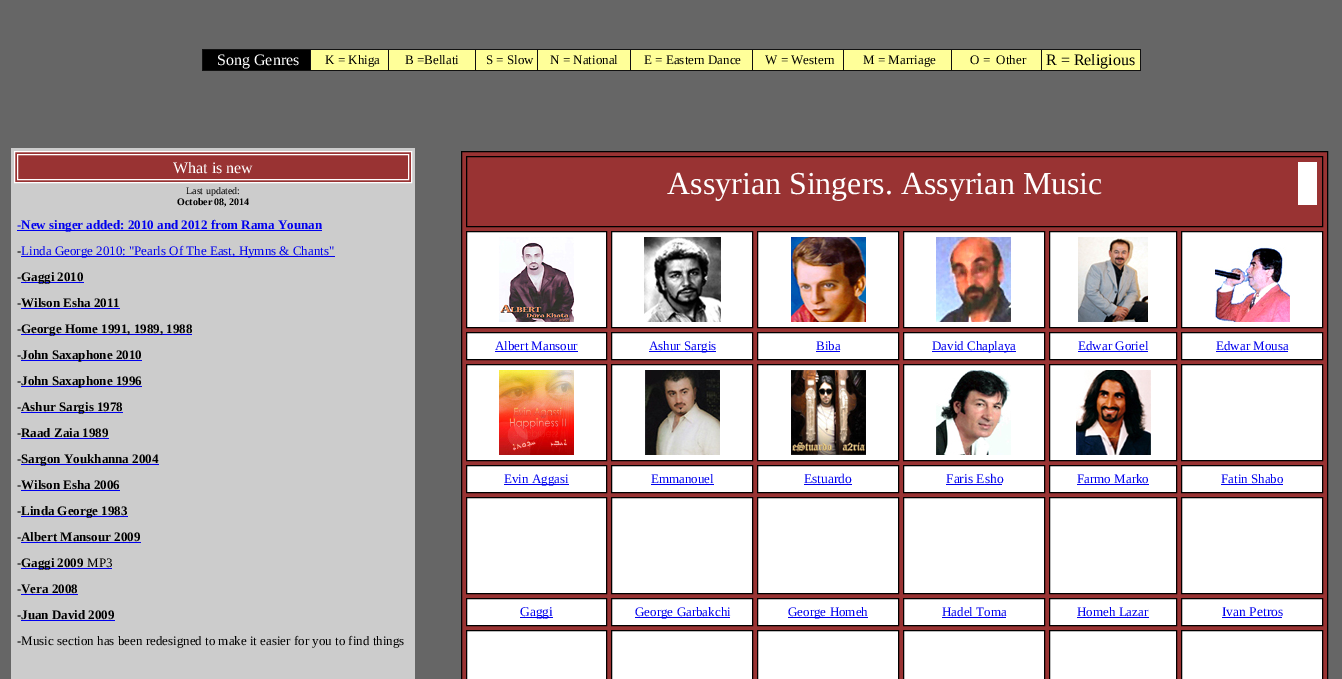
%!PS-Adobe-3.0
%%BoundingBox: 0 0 1342 679
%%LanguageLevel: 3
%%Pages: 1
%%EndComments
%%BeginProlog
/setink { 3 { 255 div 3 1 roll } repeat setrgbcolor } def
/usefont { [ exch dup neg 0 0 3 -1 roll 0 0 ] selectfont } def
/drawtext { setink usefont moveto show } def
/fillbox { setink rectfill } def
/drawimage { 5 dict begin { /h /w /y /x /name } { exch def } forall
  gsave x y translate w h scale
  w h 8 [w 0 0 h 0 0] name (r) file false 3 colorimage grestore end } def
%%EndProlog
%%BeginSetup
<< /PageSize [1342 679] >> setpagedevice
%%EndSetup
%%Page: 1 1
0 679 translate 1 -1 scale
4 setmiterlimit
0 0 1342 679 102 102 102 fillbox
202 49 939 1 17 17 17 fillbox
1140 49 1 22 17 17 17 fillbox
202 70 939 1 17 17 17 fillbox
202 49 1 22 17 17 17 fillbox
203 50 107 20 0 0 0 fillbox
(Song Genres) 217 65 /LiberationSerif-Regular 16 255 255 255 drawtext
311 50 77 20 255 255 153 fillbox
310 49 1 22 17 17 17 fillbox
(K = Khiga) 325 64 /LiberationSerif-Regular 13 0 0 0 drawtext
389 50 86 20 255 255 153 fillbox
388 49 1 22 17 17 17 fillbox
(B =Bellati) 405 64 /LiberationSerif-Regular 13 0 0 0 drawtext
476 50 61 20 255 255 153 fillbox
475 49 1 22 17 17 17 fillbox
(S = Slow) 486 64 /LiberationSerif-Regular 13 0 0 0 drawtext
538 50 92 20 255 255 153 fillbox
537 49 1 22 17 17 17 fillbox
(N = National) 550 64 /LiberationSerif-Regular 13 0 0 0 drawtext
631 50 121 20 255 255 153 fillbox
630 49 1 22 17 17 17 fillbox
(E = Eastern Dance) 644 64 /LiberationSerif-Regular 13 0 0 0 drawtext
753 50 90 20 255 255 153 fillbox
752 49 1 22 17 17 17 fillbox
(W = Western) 765 64 /LiberationSerif-Regular 13 0 0 0 drawtext
844 50 107 20 255 255 153 fillbox
843 49 1 22 17 17 17 fillbox
(M = Marriage) 863 64 /LiberationSerif-Regular 13 0 0 0 drawtext
952 50 89 20 255 255 153 fillbox
951 49 1 22 17 17 17 fillbox
(O =  Other) 970 64 /LiberationSerif-Regular 13 0 0 0 drawtext
1042 50 98 20 255 255 153 fillbox
1041 49 1 22 17 17 17 fillbox
(R = Religious) 1046 65 /LiberationSerif-Regular 16 0 0 0 drawtext
11 148 404 531 204 204 204 fillbox
153 51 51 setink
14.5 151.5 moveto 411.5 151.5 lineto 411.5 182.5 lineto 14.5 182.5 lineto closepath gsave fill grestore
255 255 255 setink
stroke
17.5 154.5 391 25 rectstroke
(What is new) 173 173 /LiberationSerif-Regular 16 255 255 255 drawtext
(Last updated:) 186 194 /LiberationSerif-Regular 10 0 0 0 drawtext
(October 08, 2014) 177 205 /LiberationSerif-Bold 10 0 0 0 drawtext
17 230 305 1 0 0 238 fillbox
(-New singer added: 2010 and 2012 from Rama Younan) 17 229 /LiberationSerif-Bold 13 0 0 238 drawtext
(-) 17 255 /LiberationSerif-Regular 13 0 0 0 drawtext
21 256 314 1 0 0 238 fillbox
(Linda George 2010: "Pearls Of The East, Hymns & Chants") 21 255 /LiberationSerif-Regular 13 0 0 238 drawtext
(-) 17 281 /LiberationSerif-Regular 13 0 0 0 drawtext
21 282 63 1 0 0 238 fillbox
(Gaggi 2010) 21 281 /LiberationSerif-Bold 13 0 0 0 drawtext
(-) 17 307 /LiberationSerif-Regular 13 0 0 0 drawtext
21 308 99 1 0 0 238 fillbox
(Wilson Esha 2011) 21 307 /LiberationSerif-Bold 13 0 0 0 drawtext
(-) 17 333 /LiberationSerif-Regular 13 0 0 0 drawtext
21 334 171 1 0 0 238 fillbox
(George Home 1991, 1989, 1988) 21 333 /LiberationSerif-Bold 13 0 0 0 drawtext
(-) 17 359 /LiberationSerif-Regular 13 0 0 0 drawtext
21 360 121 1 0 0 238 fillbox
(John Saxaphone 2010) 21 359 /LiberationSerif-Bold 13 0 0 0 drawtext
(-) 17 385 /LiberationSerif-Regular 13 0 0 0 drawtext
21 386 121 1 0 0 238 fillbox
(John Saxaphone 1996) 21 385 /LiberationSerif-Bold 13 0 0 0 drawtext
(-) 17 411 /LiberationSerif-Regular 13 0 0 0 drawtext
21 412 102 1 0 0 238 fillbox
(Ashur Sargis 1978) 21 411 /LiberationSerif-Bold 13 0 0 0 drawtext
(-) 17 437 /LiberationSerif-Regular 13 0 0 0 drawtext
21 438 88 1 0 0 238 fillbox
(Raad Zaia 1989) 21 437 /LiberationSerif-Bold 13 0 0 0 drawtext
(-) 17 463 /LiberationSerif-Regular 13 0 0 0 drawtext
21 464 138 1 0 0 238 fillbox
(Sargon Youkhanna 2004) 21 463 /LiberationSerif-Bold 13 0 0 0 drawtext
(-) 17 489 /LiberationSerif-Regular 13 0 0 0 drawtext
21 490 99 1 0 0 238 fillbox
(Wilson Esha 2006) 21 489 /LiberationSerif-Bold 13 0 0 0 drawtext
(-) 17 515 /LiberationSerif-Regular 13 0 0 0 drawtext
21 516 107 1 0 0 238 fillbox
(Linda George 1983) 21 515 /LiberationSerif-Bold 13 0 0 0 drawtext
(-) 17 541 /LiberationSerif-Regular 13 0 0 0 drawtext
21 542 120 1 0 0 238 fillbox
(Albert Mansour 2009) 21 541 /LiberationSerif-Bold 13 0 0 0 drawtext
(-) 17 567 /LiberationSerif-Regular 13 0 0 0 drawtext
21 568 91 1 0 0 238 fillbox
(Gaggi 2009) 21 567 /LiberationSerif-Bold 13 0 0 0 drawtext
(MP3) 87 567 /LiberationSerif-Regular 13 0 0 0 drawtext
(-) 17 593 /LiberationSerif-Regular 13 0 0 0 drawtext
21 594 57 1 0 0 238 fillbox
(Vera 2008) 21 593 /LiberationSerif-Bold 13 0 0 0 drawtext
(-) 17 619 /LiberationSerif-Regular 13 0 0 0 drawtext
21 620 94 1 0 0 238 fillbox
(Juan David 2009) 21 619 /LiberationSerif-Bold 13 0 0 0 drawtext
(-Music section has been redesigned to make it easier for you to find things) 17 645 /LiberationSerif-Regular 13 0 0 0 drawtext
153 51 51 setink
461.5 151.5 moveto 1327.5 151.5 lineto 1327.5 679.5 lineto 461.5 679.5 lineto closepath gsave fill grestore
0 0 0 setink
stroke
466.5 156.5 856 70 rectstroke
(Assyrian Singers. Assyrian Music) 667 194 /LiberationSerif-Regular 32 255 255 255 drawtext
1298 162 19 43 255 255 255 fillbox
466.5 231.5 moveto 606.5 231.5 lineto 606.5 327.5 lineto 466.5 327.5 lineto closepath gsave fill grestore
0 0 0 setink
stroke
(assets/img1.rgb) 499 237 75 85 drawimage
255 255 255 setink
611.5 231.5 moveto 752.5 231.5 lineto 752.5 327.5 lineto 611.5 327.5 lineto closepath gsave fill grestore
0 0 0 setink
stroke
(assets/img2.rgb) 644 237 77 85 drawimage
255 255 255 setink
757.5 231.5 moveto 898.5 231.5 lineto 898.5 327.5 lineto 757.5 327.5 lineto closepath gsave fill grestore
0 0 0 setink
stroke
(assets/img3.rgb) 791 237 75 85 drawimage
255 255 255 setink
903.5 231.5 moveto 1044.5 231.5 lineto 1044.5 327.5 lineto 903.5 327.5 lineto closepath gsave fill grestore
0 0 0 setink
stroke
(assets/img4.rgb) 936 237 75 85 drawimage
255 255 255 setink
1049.5 231.5 moveto 1176.5 231.5 lineto 1176.5 327.5 lineto 1049.5 327.5 lineto closepath gsave fill grestore
0 0 0 setink
stroke
(assets/img5.rgb) 1078 237 70 85 drawimage
255 255 255 setink
1181.5 231.5 moveto 1322.5 231.5 lineto 1322.5 327.5 lineto 1181.5 327.5 lineto closepath gsave fill grestore
0 0 0 setink
stroke
(assets/img6.rgb) 1215 247 75 75 drawimage
255 255 255 setink
466.5 332.5 moveto 606.5 332.5 lineto 606.5 359.5 lineto 466.5 359.5 lineto closepath gsave fill grestore
0 0 0 setink
stroke
(Albert Mansour) 495 350 /LiberationSerif-Regular 13 0 0 238 drawtext
495 351 83 1 0 0 238 fillbox
255 255 255 setink
611.5 332.5 moveto 752.5 332.5 lineto 752.5 359.5 lineto 611.5 359.5 lineto closepath gsave fill grestore
0 0 0 setink
stroke
649 351 67 1 0 0 238 fillbox
(Ashur Sargis) 649 350 /LiberationSerif-Regular 13 0 0 238 drawtext
255 255 255 setink
757.5 332.5 moveto 898.5 332.5 lineto 898.5 359.5 lineto 757.5 359.5 lineto closepath gsave fill grestore
0 0 0 setink
stroke
(Biba) 816 350 /LiberationSerif-Regular 13 0 0 238 drawtext
816 351 24 1 0 0 238 fillbox
255 255 255 setink
903.5 332.5 moveto 1044.5 332.5 lineto 1044.5 359.5 lineto 903.5 359.5 lineto closepath gsave fill grestore
0 0 0 setink
stroke
932 351 84 1 0 0 238 fillbox
(David Chaplaya) 932 350 /LiberationSerif-Regular 13 0 0 238 drawtext
255 255 255 setink
1049.5 332.5 moveto 1176.5 332.5 lineto 1176.5 359.5 lineto 1049.5 359.5 lineto closepath gsave fill grestore
0 0 0 setink
stroke
(Edwar Goriel) 1078 350 /LiberationSerif-Regular 13 0 0 238 drawtext
1078 351 70 1 0 0 238 fillbox
255 255 255 setink
1181.5 332.5 moveto 1322.5 332.5 lineto 1322.5 359.5 lineto 1181.5 359.5 lineto closepath gsave fill grestore
0 0 0 setink
stroke
(Edwar Mousa) 1216 350 /LiberationSerif-Regular 13 0 0 238 drawtext
1216 351 72 1 0 0 238 fillbox
255 255 255 setink
466.5 364.5 moveto 606.5 364.5 lineto 606.5 460.5 lineto 466.5 460.5 lineto closepath gsave fill grestore
0 0 0 setink
stroke
(assets/img7.rgb) 499 370 75 85 drawimage
255 255 255 setink
611.5 364.5 moveto 752.5 364.5 lineto 752.5 460.5 lineto 611.5 460.5 lineto closepath gsave fill grestore
0 0 0 setink
stroke
(assets/img8.rgb) 645 370 75 85 drawimage
255 255 255 setink
757.5 364.5 moveto 898.5 364.5 lineto 898.5 460.5 lineto 757.5 460.5 lineto closepath gsave fill grestore
0 0 0 setink
stroke
(assets/img9.rgb) 791 370 75 85 drawimage
255 255 255 setink
903.5 364.5 moveto 1044.5 364.5 lineto 1044.5 460.5 lineto 903.5 460.5 lineto closepath gsave fill grestore
0 0 0 setink
stroke
(assets/img10.rgb) 936 370 75 85 drawimage
255 255 255 setink
1049.5 364.5 moveto 1176.5 364.5 lineto 1176.5 460.5 lineto 1049.5 460.5 lineto closepath gsave fill grestore
0 0 0 setink
stroke
(assets/img11.rgb) 1076 370 75 85 drawimage
255 255 255 setink
1181.5 364.5 moveto 1322.5 364.5 lineto 1322.5 460.5 lineto 1181.5 460.5 lineto closepath gsave fill grestore
0 0 0 setink
stroke
255 255 255 setink
466.5 465.5 moveto 606.5 465.5 lineto 606.5 492.5 lineto 466.5 492.5 lineto closepath gsave fill grestore
0 0 0 setink
stroke
504 484 65 1 0 0 238 fillbox
(Evin Aggasi) 504 483 /LiberationSerif-Regular 13 0 0 238 drawtext
255 255 255 setink
611.5 465.5 moveto 752.5 465.5 lineto 752.5 492.5 lineto 611.5 492.5 lineto closepath gsave fill grestore
0 0 0 setink
stroke
(Emmanouel) 651 483 /LiberationSerif-Regular 13 0 0 238 drawtext
651 484 63 1 0 0 238 fillbox
255 255 255 setink
757.5 465.5 moveto 898.5 465.5 lineto 898.5 492.5 lineto 757.5 492.5 lineto closepath gsave fill grestore
0 0 0 setink
stroke
(Estuardo) 804 483 /LiberationSerif-Regular 13.5 0 0 238 drawtext
804 484 48 1 0 0 238 fillbox
255 255 255 setink
903.5 465.5 moveto 1044.5 465.5 lineto 1044.5 492.5 lineto 903.5 492.5 lineto closepath gsave fill grestore
0 0 0 setink
stroke
(Faris Esho) 946 483 /LiberationSerif-Regular 13.5 0 0 238 drawtext
946 484 56 1 0 0 238 fillbox
255 255 255 setink
1049.5 465.5 moveto 1176.5 465.5 lineto 1176.5 492.5 lineto 1049.5 492.5 lineto closepath gsave fill grestore
0 0 0 setink
stroke
(Farmo Marko) 1077 483 /LiberationSerif-Regular 13 0 0 238 drawtext
1077 484 72 1 0 0 238 fillbox
255 255 255 setink
1181.5 465.5 moveto 1322.5 465.5 lineto 1322.5 492.5 lineto 1181.5 492.5 lineto closepath gsave fill grestore
0 0 0 setink
stroke
(Fatin Shabo) 1221 483 /LiberationSerif-Regular 13 0 0 238 drawtext
1221 484 62 1 0 0 238 fillbox
255 255 255 setink
466.5 497.5 moveto 606.5 497.5 lineto 606.5 593.5 lineto 466.5 593.5 lineto closepath gsave fill grestore
0 0 0 setink
stroke
255 255 255 setink
611.5 497.5 moveto 752.5 497.5 lineto 752.5 593.5 lineto 611.5 593.5 lineto closepath gsave fill grestore
0 0 0 setink
stroke
255 255 255 setink
757.5 497.5 moveto 898.5 497.5 lineto 898.5 593.5 lineto 757.5 593.5 lineto closepath gsave fill grestore
0 0 0 setink
stroke
255 255 255 setink
903.5 497.5 moveto 1044.5 497.5 lineto 1044.5 593.5 lineto 903.5 593.5 lineto closepath gsave fill grestore
0 0 0 setink
stroke
255 255 255 setink
1049.5 497.5 moveto 1176.5 497.5 lineto 1176.5 593.5 lineto 1049.5 593.5 lineto closepath gsave fill grestore
0 0 0 setink
stroke
255 255 255 setink
1181.5 497.5 moveto 1322.5 497.5 lineto 1322.5 593.5 lineto 1181.5 593.5 lineto closepath gsave fill grestore
0 0 0 setink
stroke
255 255 255 setink
466.5 598.5 moveto 606.5 598.5 lineto 606.5 625.5 lineto 466.5 625.5 lineto closepath gsave fill grestore
0 0 0 setink
stroke
520 617 33 1 0 0 238 fillbox
(Gaggi) 520 616 /LiberationSerif-Regular 13.5 0 0 238 drawtext
255 255 255 setink
611.5 598.5 moveto 752.5 598.5 lineto 752.5 625.5 lineto 611.5 625.5 lineto closepath gsave fill grestore
0 0 0 setink
stroke
635 617 95 1 0 0 238 fillbox
(George Garbakchi) 635 616 /LiberationSerif-Regular 13 0 0 238 drawtext
255 255 255 setink
757.5 598.5 moveto 898.5 598.5 lineto 898.5 625.5 lineto 757.5 625.5 lineto closepath gsave fill grestore
0 0 0 setink
stroke
788 617 80 1 0 0 238 fillbox
(George Homeh) 788 616 /LiberationSerif-Regular 13 0 0 238 drawtext
255 255 255 setink
903.5 598.5 moveto 1044.5 598.5 lineto 1044.5 625.5 lineto 903.5 625.5 lineto closepath gsave fill grestore
0 0 0 setink
stroke
(Hadel Toma) 942 616 /LiberationSerif-Regular 13 0 0 238 drawtext
942 617 64 1 0 0 238 fillbox
255 255 255 setink
1049.5 598.5 moveto 1176.5 598.5 lineto 1176.5 625.5 lineto 1049.5 625.5 lineto closepath gsave fill grestore
0 0 0 setink
stroke
(Homeh Lazar) 1077 616 /LiberationSerif-Regular 13 0 0 238 drawtext
1077 617 72 1 0 0 238 fillbox
255 255 255 setink
1181.5 598.5 moveto 1322.5 598.5 lineto 1322.5 625.5 lineto 1181.5 625.5 lineto closepath gsave fill grestore
0 0 0 setink
stroke
(Ivan Petros) 1222 616 /LiberationSerif-Regular 13.5 0 0 238 drawtext
1222 617 60 1 0 0 238 fillbox
255 255 255 setink
466.5 630.5 moveto 606.5 630.5 lineto 606.5 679.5 lineto 466.5 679.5 lineto closepath gsave fill grestore
0 0 0 setink
stroke
255 255 255 setink
611.5 630.5 moveto 752.5 630.5 lineto 752.5 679.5 lineto 611.5 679.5 lineto closepath gsave fill grestore
0 0 0 setink
stroke
255 255 255 setink
757.5 630.5 moveto 898.5 630.5 lineto 898.5 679.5 lineto 757.5 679.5 lineto closepath gsave fill grestore
0 0 0 setink
stroke
255 255 255 setink
903.5 630.5 moveto 1044.5 630.5 lineto 1044.5 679.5 lineto 903.5 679.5 lineto closepath gsave fill grestore
0 0 0 setink
stroke
255 255 255 setink
1049.5 630.5 moveto 1176.5 630.5 lineto 1176.5 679.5 lineto 1049.5 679.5 lineto closepath gsave fill grestore
0 0 0 setink
stroke
255 255 255 setink
1181.5 630.5 moveto 1322.5 630.5 lineto 1322.5 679.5 lineto 1181.5 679.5 lineto closepath gsave fill grestore
0 0 0 setink
stroke
showpage
%%EOF
